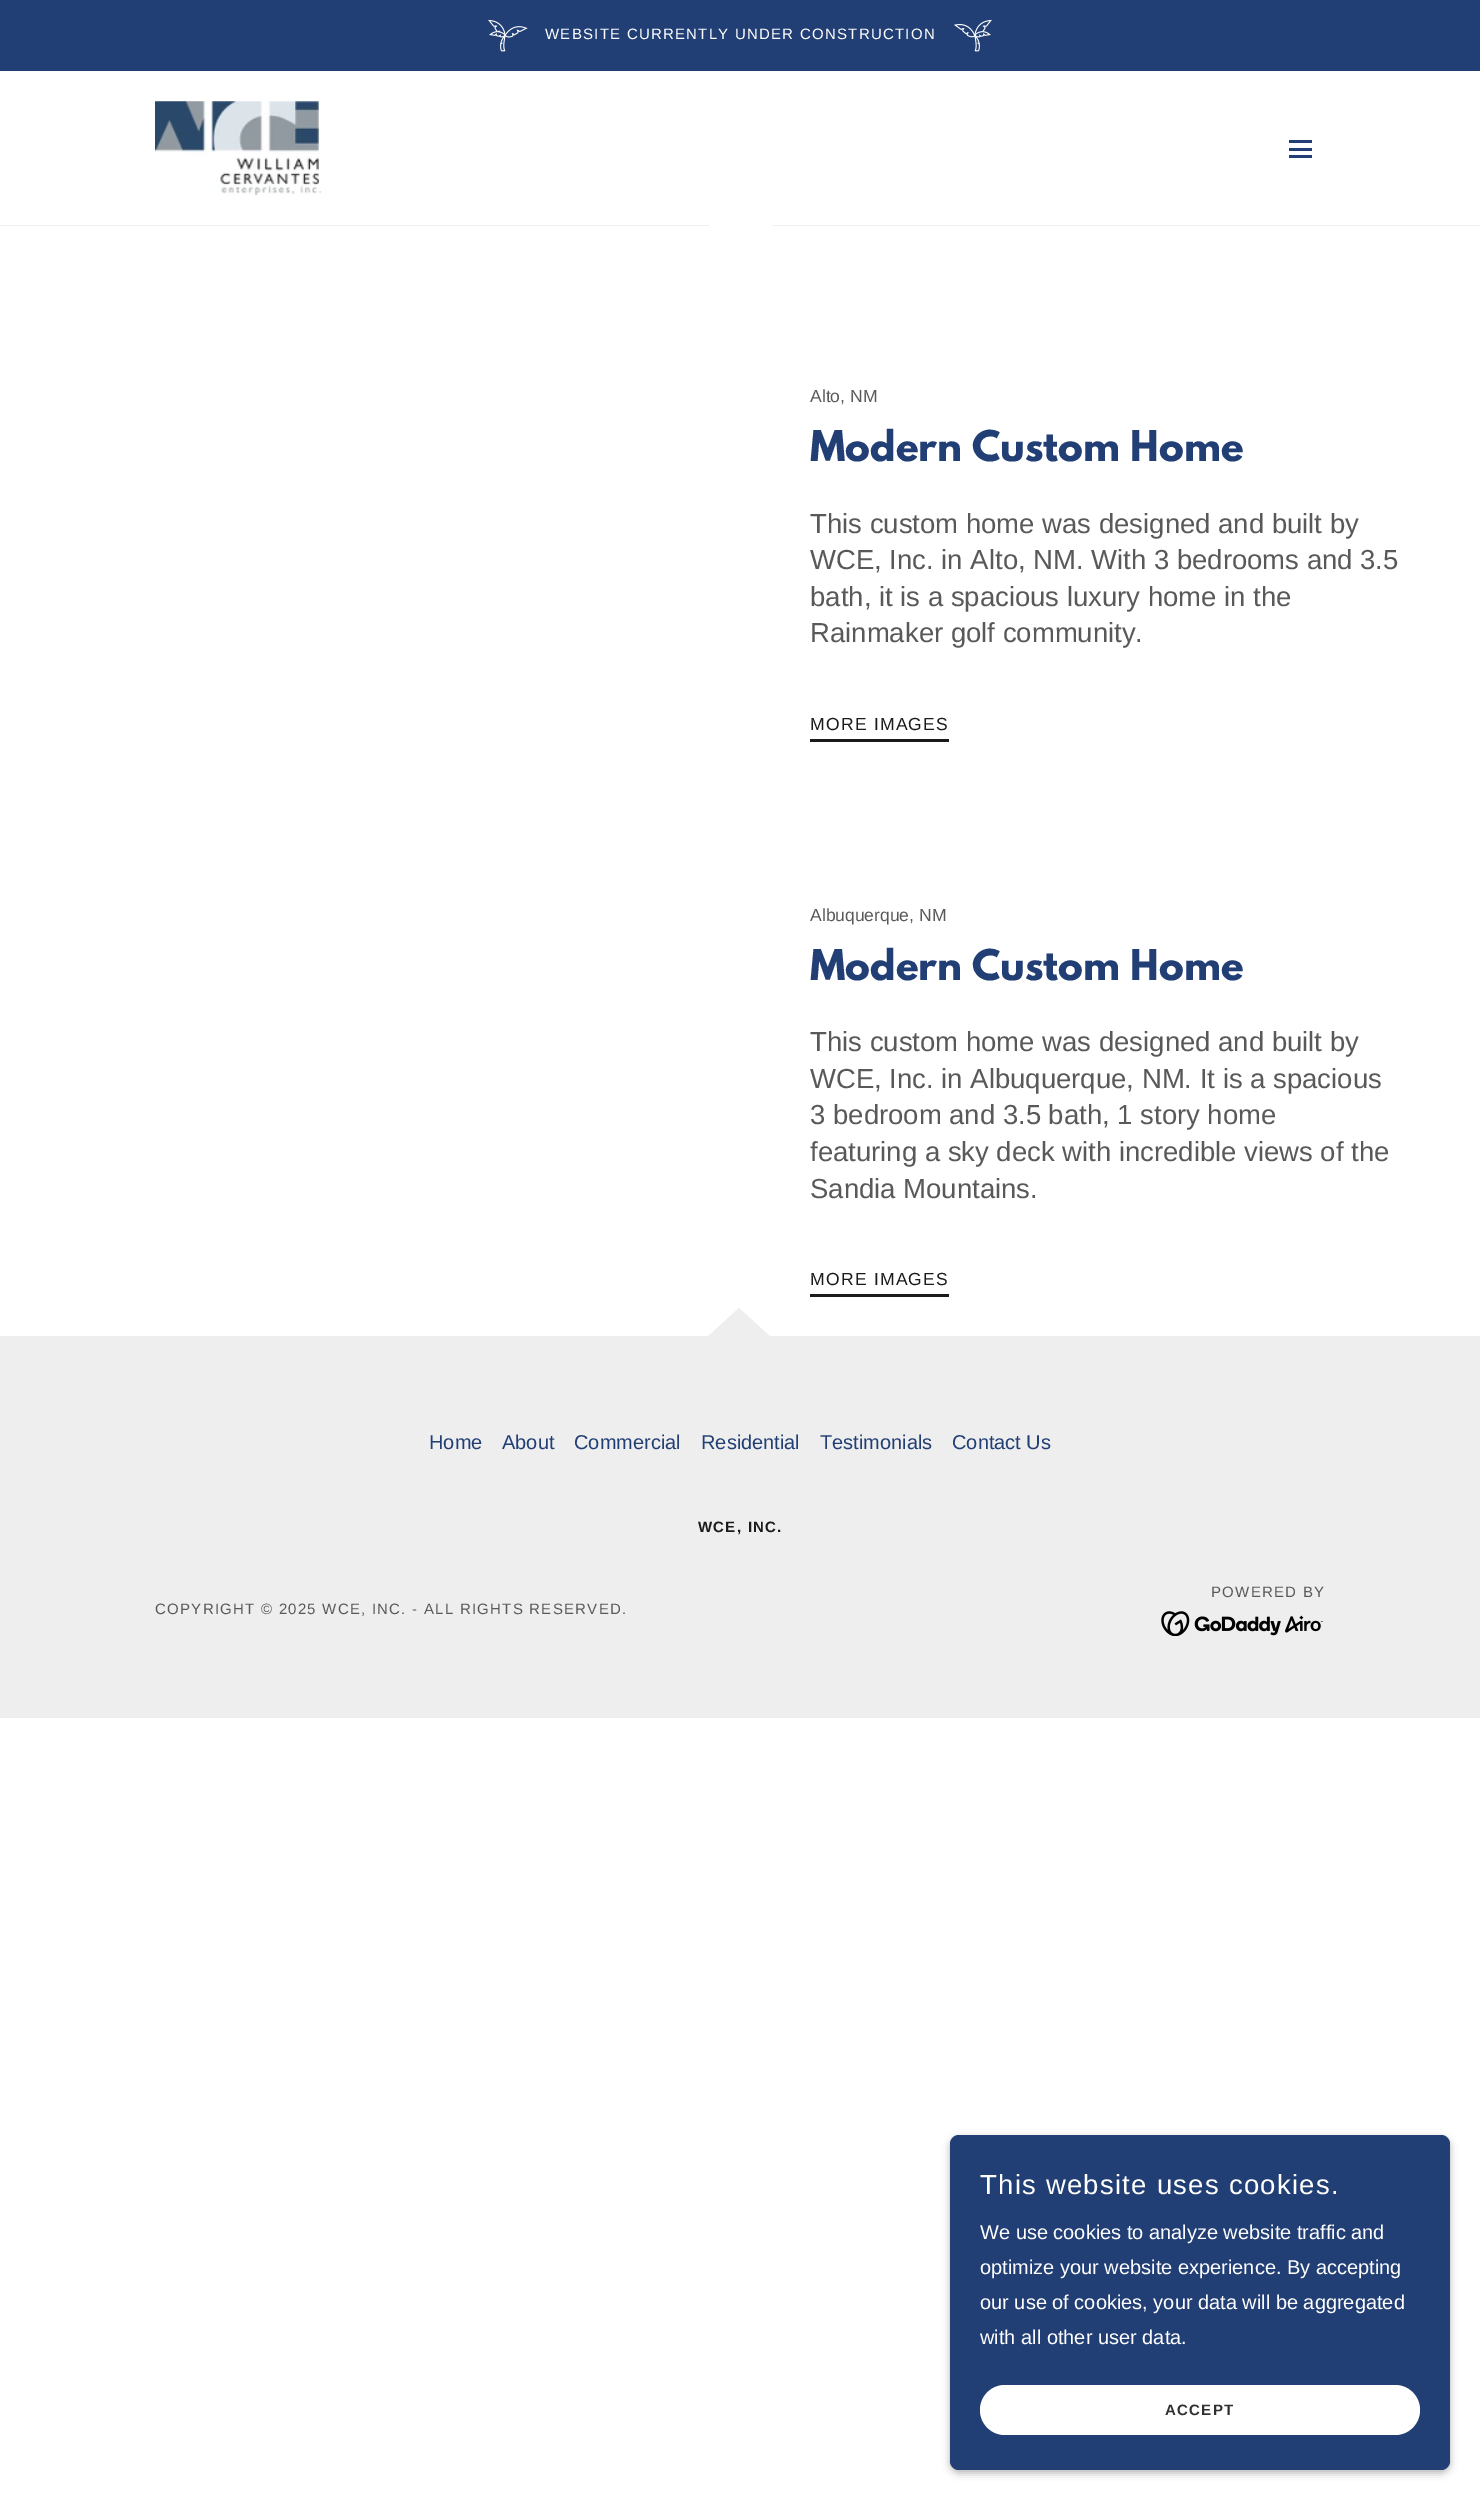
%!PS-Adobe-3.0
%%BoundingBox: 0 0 1480 2500
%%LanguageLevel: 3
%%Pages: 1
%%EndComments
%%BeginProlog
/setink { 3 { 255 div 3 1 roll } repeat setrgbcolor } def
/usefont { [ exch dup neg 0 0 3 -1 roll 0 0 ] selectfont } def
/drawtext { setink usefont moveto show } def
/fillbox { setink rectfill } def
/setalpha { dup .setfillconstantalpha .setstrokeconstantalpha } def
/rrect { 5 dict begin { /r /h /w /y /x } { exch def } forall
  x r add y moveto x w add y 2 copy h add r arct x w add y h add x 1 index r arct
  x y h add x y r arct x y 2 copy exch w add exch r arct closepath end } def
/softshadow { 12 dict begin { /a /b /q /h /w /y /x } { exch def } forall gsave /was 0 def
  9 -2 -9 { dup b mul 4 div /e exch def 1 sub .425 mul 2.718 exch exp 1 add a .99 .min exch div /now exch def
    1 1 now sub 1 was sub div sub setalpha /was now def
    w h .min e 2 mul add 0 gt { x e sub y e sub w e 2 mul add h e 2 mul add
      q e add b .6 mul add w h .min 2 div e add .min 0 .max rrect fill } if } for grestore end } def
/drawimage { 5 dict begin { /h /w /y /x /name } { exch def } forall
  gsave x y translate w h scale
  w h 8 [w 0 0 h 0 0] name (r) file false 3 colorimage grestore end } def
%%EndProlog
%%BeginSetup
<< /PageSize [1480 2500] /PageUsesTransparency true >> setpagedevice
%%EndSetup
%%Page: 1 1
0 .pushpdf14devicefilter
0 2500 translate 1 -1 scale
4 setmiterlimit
0 0 1480 2500 255 255 255 fillbox
0 0 1480 71 34 63 117 fillbox
(assets/img1.rgb) 488 19 40 33 drawimage
/LiberationSans-Regular 15 usefont
255 255 255 setink
545 39 moveto 1.25 0 (WEBSITE CURRENTLY UNDER CONSTRUCTION) ashow
(assets/img2.rgb) 954 19 38 33 drawimage
0 225 1480 1 239 239 239 fillbox
(assets/img3.rgb) 155 101 167 94 drawimage
1289 140 23 3 34 63 117 fillbox
1289 148 23 3 34 63 117 fillbox
1289 155 23 3 34 63 117 fillbox
255 255 255 setink
741 254 moveto 774 224 lineto 708 224 lineto closepath eofill
(Alto, NM) 810 402 /LiberationSans-Regular 17.5 89 89 89 drawtext
(Modern Custom Home) 810 461 /LeagueSpartan-Bold 37.5 34 63 117 drawtext
(This custom home was designed and built by) 810 533 /LiberationSans-Regular 27.5 89 89 89 drawtext
(WCE, Inc. in Alto, NM. With 3 bedrooms and 3.5) 810 569 /LiberationSans-Regular 27.5 89 89 89 drawtext
(bath, it is a spacious luxury home in the) 810 606 /LiberationSans-Regular 27.5 89 89 89 drawtext
(Rainmaker golf community.) 810 642 /LiberationSans-Regular 27.5 89 89 89 drawtext
810 739 139 3 27 27 27 fillbox
/LiberationSans-Regular 17.5 usefont
810 730 moveto 1.25 0 (MORE IMAGES) ashow
(Albuquerque, NM) 810 921 /LiberationSans-Regular 17.5 89 89 89 drawtext
(Modern Custom Home) 810 980 /LeagueSpartan-Bold 37.5 34 63 117 drawtext
(This custom home was designed and built by) 810 1051 /LiberationSans-Regular 27.5 89 89 89 drawtext
(WCE, Inc. in Albuquerque, NM. It is a spacious) 810 1088 /LiberationSans-Regular 27.5 89 89 89 drawtext
(3 bedroom and 3.5 bath, 1 story home) 810 1124 /LiberationSans-Regular 27.5 89 89 89 drawtext
(featuring a sky deck with incredible views of the) 810 1161 /LiberationSans-Regular 27.5 89 89 89 drawtext
(Sandia Mountains.) 810 1198 /LiberationSans-Regular 27.5 89 89 89 drawtext
810 1294 139 3 27 27 27 fillbox
/LiberationSans-Regular 17.5 usefont
810 1285 moveto 1.25 0 (MORE IMAGES) ashow
0 1336 1480 382 238 238 238 fillbox
gsave
708 1308 66 30 rectclip
739 1308 moveto 706 1338 lineto 772 1338 lineto closepath eofill
grestore
(Home) 429 1449 /LiberationSans-Regular 20 34 63 117 drawtext
(About) 502 1449 /LiberationSans-Regular 20 34 63 117 drawtext
(Commercial) 574 1449 /LiberationSans-Regular 20 34 63 117 drawtext
(Residential) 701 1449 /LiberationSans-Regular 20 34 63 117 drawtext
(Testimonials) 820 1449 /LiberationSans-Regular 20 34 63 117 drawtext
(Contact Us) 952 1449 /LiberationSans-Regular 20 34 63 117 drawtext
/LiberationSans-Bold 15 usefont
27 27 27 setink
698 1532 moveto 1.25 0 (WCE, INC.) ashow
/LiberationSans-Regular 15 usefont
89 89 89 setink
1211 1597 moveto 1.25 0 (POWERED BY) ashow
(assets/img4.rgb) 1161 1611 162 25 drawimage
155 1614 moveto 1.25 0 (COPYRIGHT © 2025 WCE, INC. - ALL RIGHTS RESERVED.) ashow
0 0 0 setink
950 2138 500 335 9 4 0.3 softshadow
34 63 117 setink
950 2135 500 335 9 rrect fill
/LiberationSans-Regular 27.5 usefont
255 255 255 setink
980 2194 moveto 1.25 0 (This website uses cookies.) ashow
(We use cookies to analyze website traffic and) 980 2239 /LiberationSans-Regular 20 255 255 255 drawtext
(optimize your website experience. By accepting) 980 2274 /LiberationSans-Regular 20 255 255 255 drawtext
(our use of cookies, your data will be aggregated) 980 2309 /LiberationSans-Regular 20 255 255 255 drawtext
(with all other user data.) 980 2344 /LiberationSans-Regular 20 255 255 255 drawtext
980 2385 440 50 25 rrect fill
/LiberationSans-Bold 15 usefont
48 48 48 setink
1165 2415 moveto 1.25 0 (ACCEPT) ashow
.poppdf14devicefilter showpage
%%EOF
